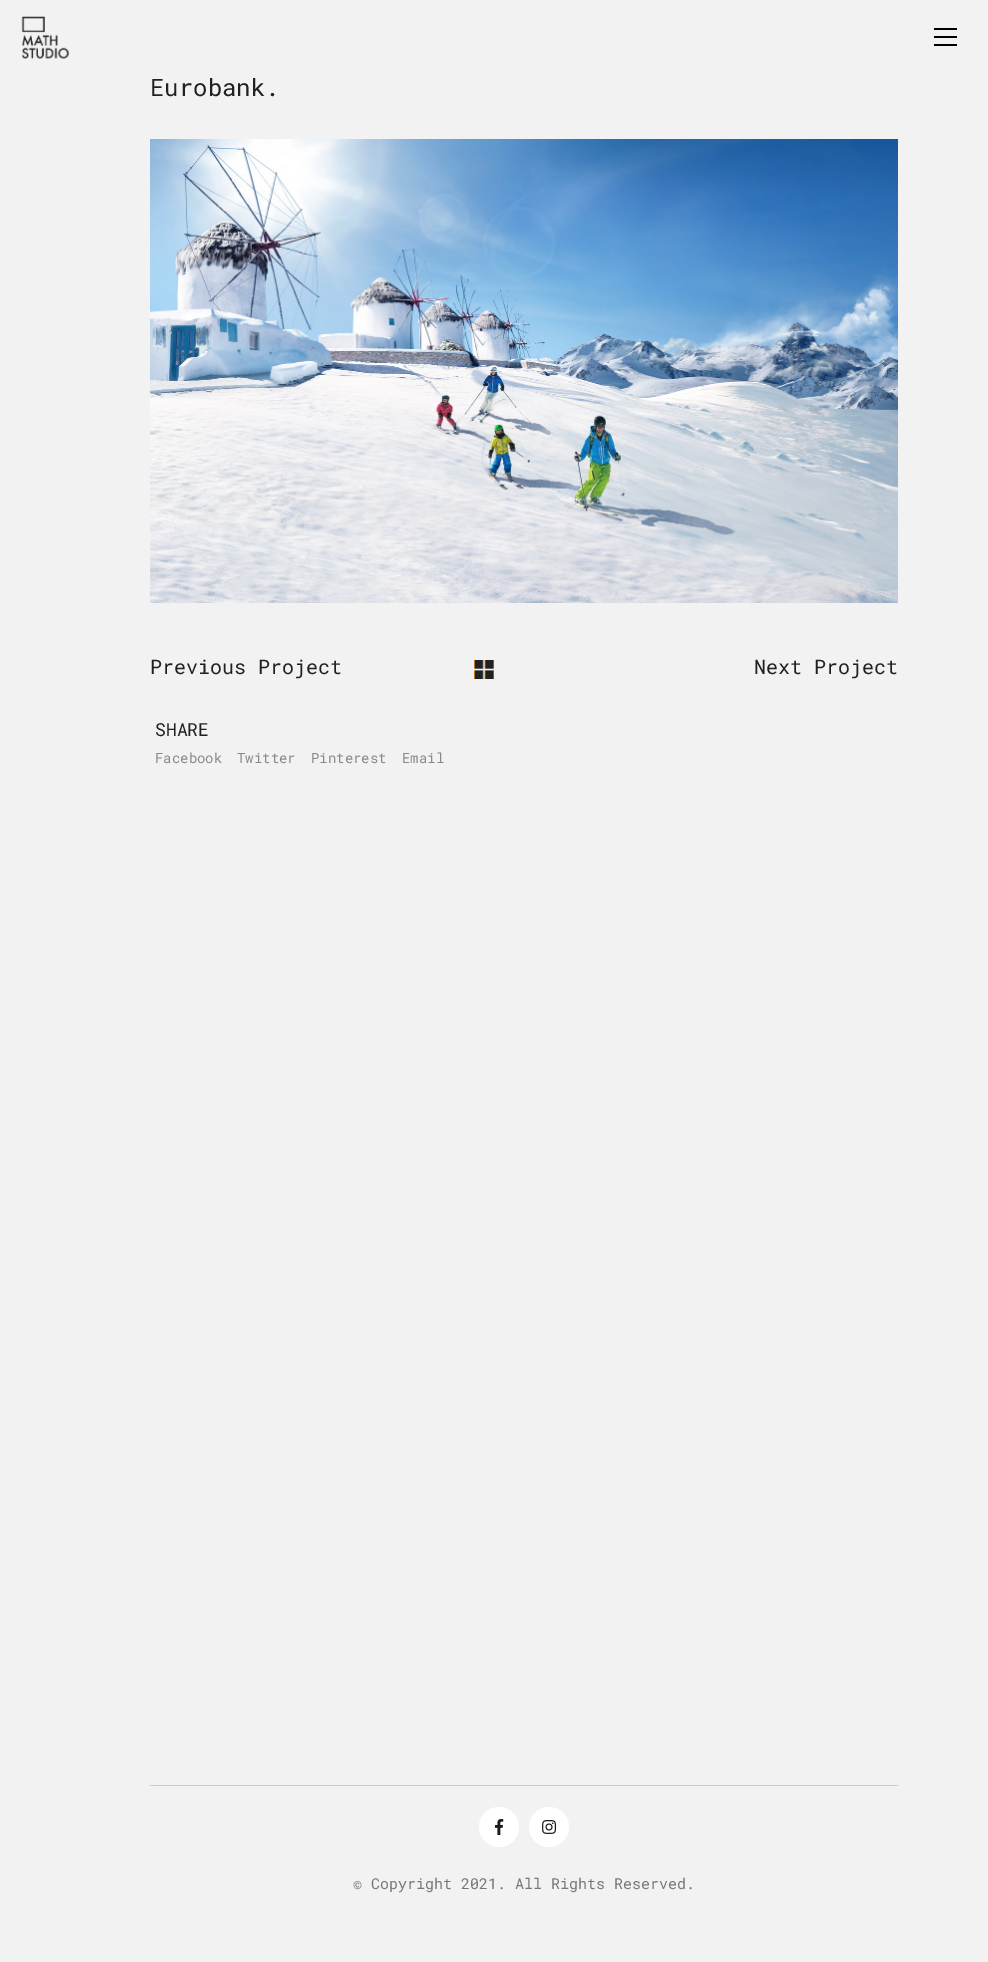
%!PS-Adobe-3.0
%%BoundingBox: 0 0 988 1962
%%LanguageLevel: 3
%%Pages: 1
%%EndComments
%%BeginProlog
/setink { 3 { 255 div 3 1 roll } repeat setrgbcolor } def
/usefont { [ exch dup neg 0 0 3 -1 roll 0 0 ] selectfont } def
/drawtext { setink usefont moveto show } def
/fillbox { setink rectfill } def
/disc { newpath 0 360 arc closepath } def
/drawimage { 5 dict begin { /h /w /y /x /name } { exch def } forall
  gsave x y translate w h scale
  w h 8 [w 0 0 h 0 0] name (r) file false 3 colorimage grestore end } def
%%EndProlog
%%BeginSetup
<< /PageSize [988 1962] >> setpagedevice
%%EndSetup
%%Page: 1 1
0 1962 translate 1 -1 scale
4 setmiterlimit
0 0 988 1962 242 242 242 fillbox
(assets/img1.rgb) 21 16 49 43 drawimage
934 36 23 2 0 0 0 fillbox
934 28 23 2 0 0 0 fillbox
934 44 23 2 0 0 0 fillbox
(Eurobank.) 150 96 /RobotoMono-Regular 24 33 33 33 drawtext
(assets/img2.rgb) 150 139 748 464 drawimage
(Previous Project) 150 674 /RobotoMono-Regular 20 33 33 33 drawtext
(assets/img3.rgb) 474 660 20 19 drawimage
(Next Project) 754 674 /RobotoMono-Regular 20 33 33 33 drawtext
(SHARE) 155 736 /RobotoMono-Regular 18 33 33 33 drawtext
(Facebook) 155 763 /RobotoMono-Regular 14 137 137 137 drawtext
(Twitter) 237 763 /RobotoMono-Regular 14 137 137 137 drawtext
(Pinterest) 311 763 /RobotoMono-Regular 14 137 137 137 drawtext
(Email) 402 763 /RobotoMono-Regular 14 137 137 137 drawtext
150 1785 748 1 204 204 204 fillbox
255 255 255 setink
499 1827 20 disc fill
(assets/img4.rgb) 495 1819 9 16 drawimage
549 1827 20 disc fill
(assets/img5.rgb) 542 1820 15 14 drawimage
(© Copyright 2021. All Rights Reserved.) 353 1889 /RobotoMono-Regular 15 119 119 119 drawtext
showpage
%%EOF
